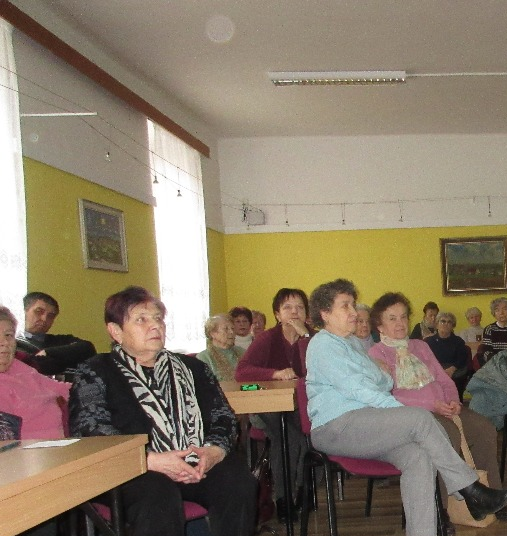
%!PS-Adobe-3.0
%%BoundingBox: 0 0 507 536
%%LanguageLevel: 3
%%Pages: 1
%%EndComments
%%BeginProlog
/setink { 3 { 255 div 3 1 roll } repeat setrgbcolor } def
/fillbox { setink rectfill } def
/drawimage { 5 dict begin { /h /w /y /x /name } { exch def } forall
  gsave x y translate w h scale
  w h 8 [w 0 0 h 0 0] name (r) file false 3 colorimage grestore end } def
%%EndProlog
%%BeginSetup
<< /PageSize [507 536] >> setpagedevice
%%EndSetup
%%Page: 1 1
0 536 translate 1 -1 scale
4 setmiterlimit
0 0 507 536 255 255 255 fillbox
(assets/img1.rgb) 0 0 507 536 drawimage
showpage
%%EOF
